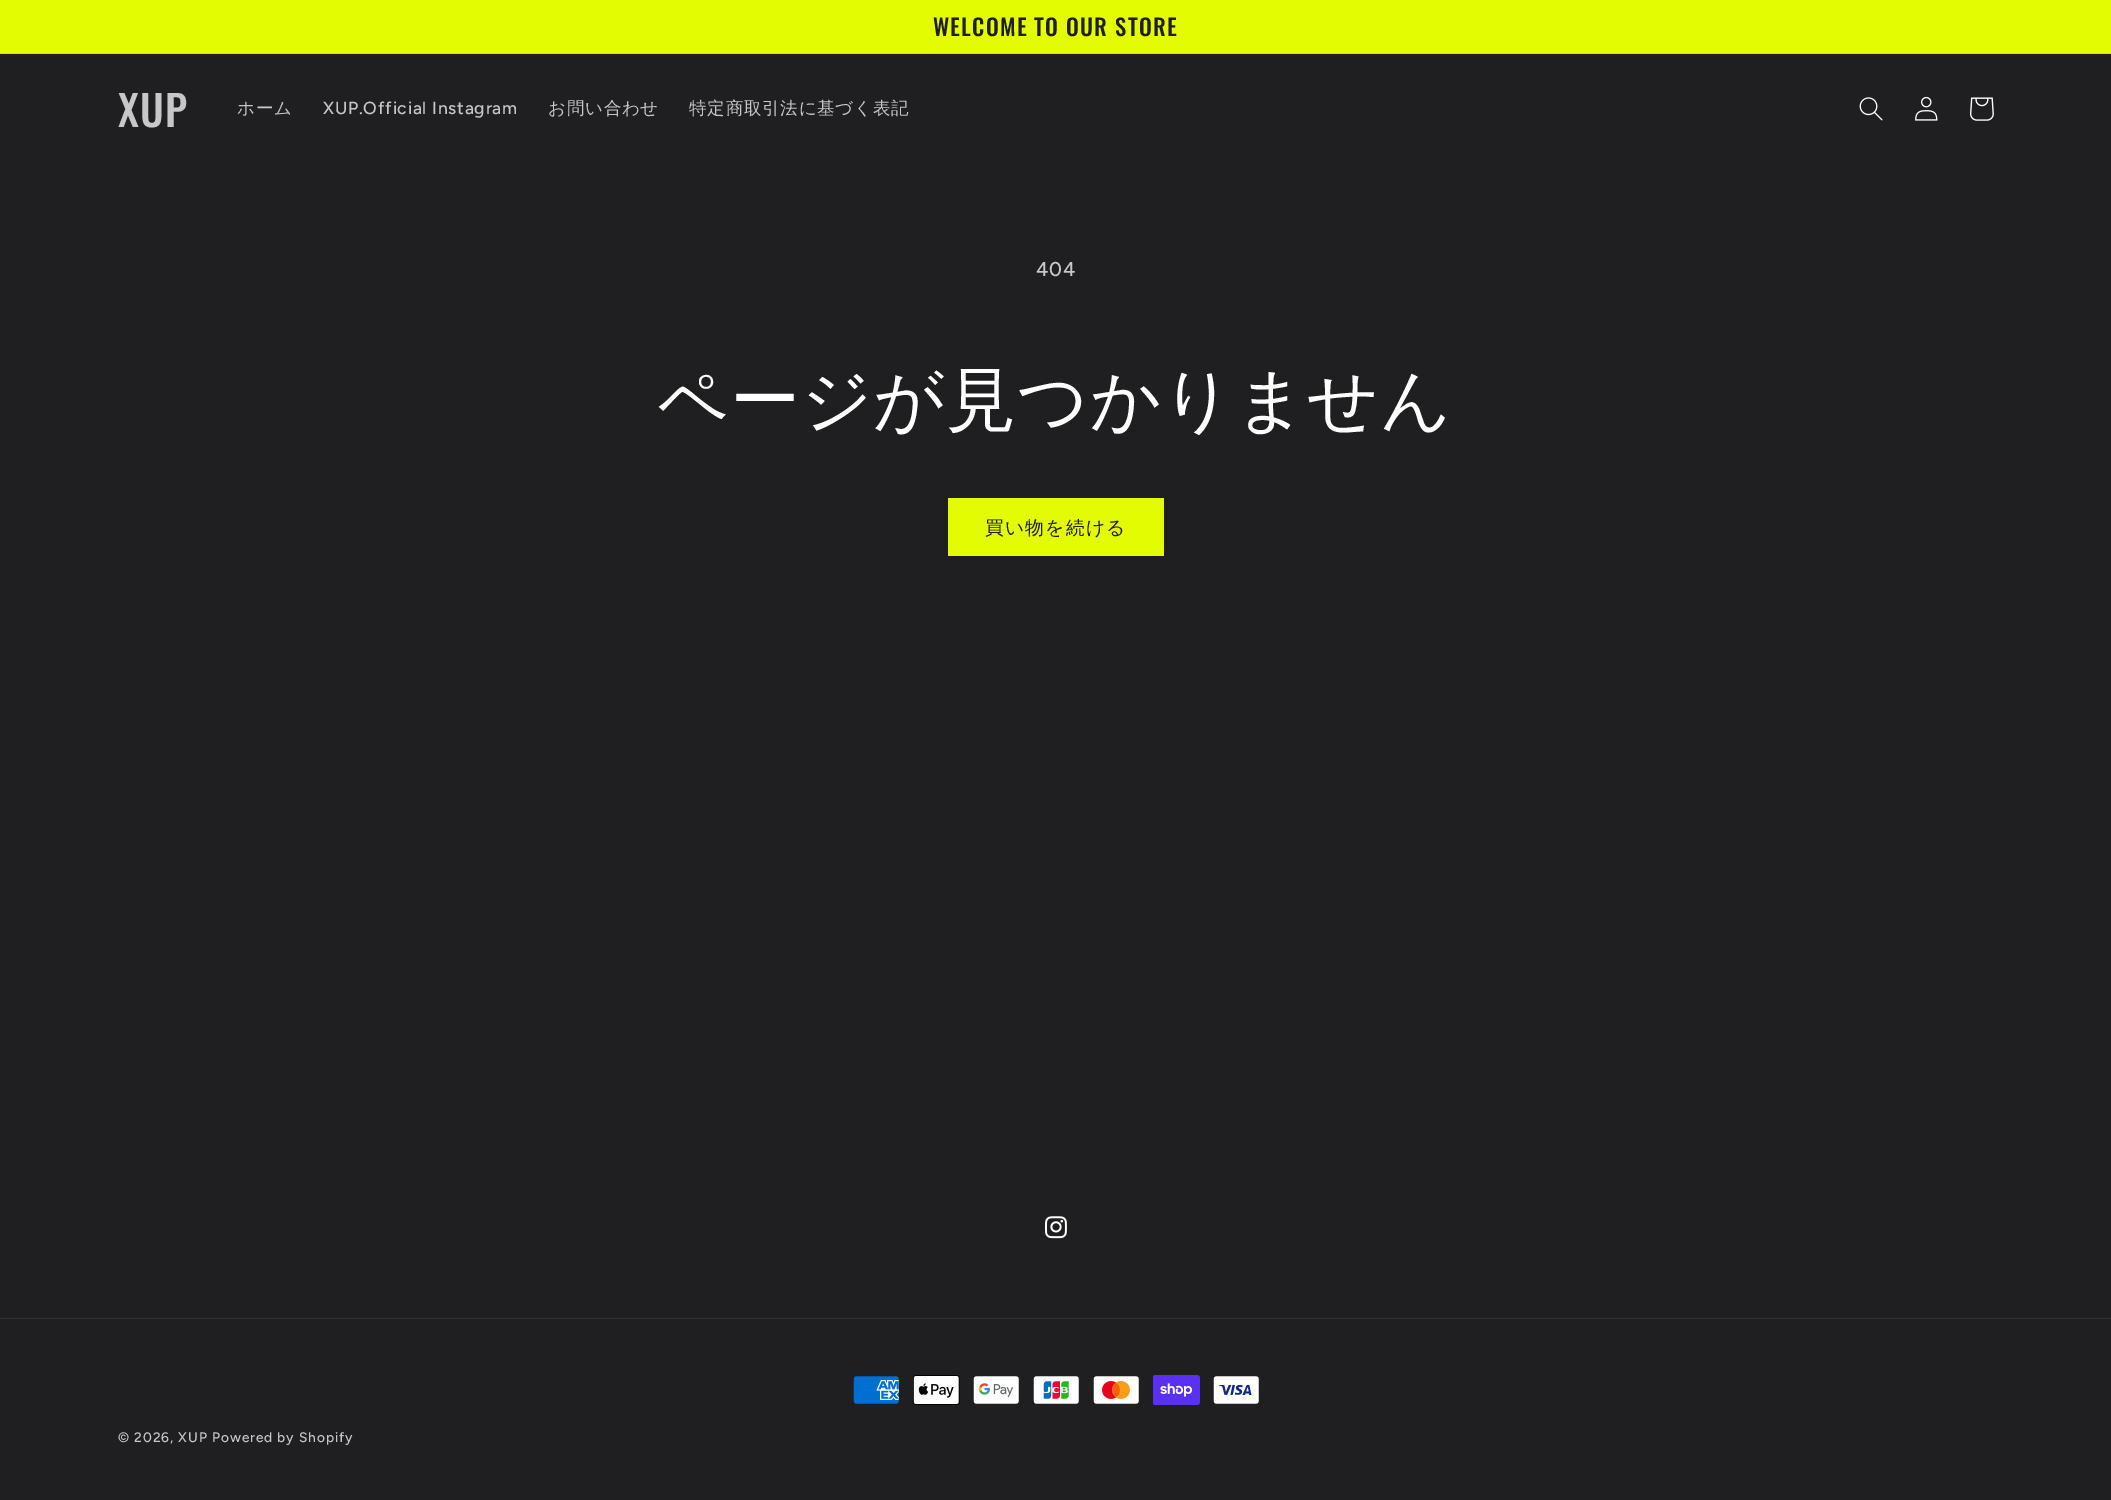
%!PS-Adobe-3.0
%%BoundingBox: 0 0 2111 1500
%%LanguageLevel: 3
%%Pages: 1
%%EndComments
%%BeginProlog
/setink { 3 { 255 div 3 1 roll } repeat setrgbcolor } def
/usefont { [ exch dup neg 0 0 3 -1 roll 0 0 ] selectfont } def
/fillbox { setink rectfill } def
/drawimage { 5 dict begin { /h /w /y /x /name } { exch def } forall
  gsave x y translate w h scale
  w h 8 [w 0 0 h 0 0] name (r) file false 3 colorimage grestore end } def
%%EndProlog
%%BeginSetup
<< /PageSize [2111 1500] >> setpagedevice
%%EndSetup
%%Page: 1 1
0 1500 translate 1 -1 scale
4 setmiterlimit
0 0 2111 1500 31 31 33 fillbox
0 0 2111 53 227 252 2 fillbox
0 53 2111 1 211 234 4 fillbox
/Oswald-Medium 22.75 usefont
31 31 33 setink
933 36 moveto 1.25 0 (WELCOME TO OUR STORE) ashow
/Oswald-Medium 42 usefont
199 199 200 setink
118 127 moveto 1 0 (XUP) ashow
/WenQuanYiZenHei-Medium 17.5 usefont
237 114 moveto 0.75 0 (ホーム) ashow
/Figtree-Medium 17.5 usefont
323 114 moveto 0.75 0 (XUP.Official Instagram) ashow
/WenQuanYiZenHei-Medium 17.5 usefont
548 114 moveto 0.75 0 (お問い合わせ) ashow
689 114 moveto 0.75 0 (特定商取引法に基づく表記) ashow
(assets/img1.rgb) 1859 97 24 24 drawimage
(assets/img2.rgb) 1915 96 23 25 drawimage
(assets/img3.rgb) 1970 97 24 24 drawimage
/Figtree-Medium 20 usefont
1036 276 moveto 0.75 0 (404) ashow
/WenQuanYiZenHei-Medium 70 usefont
255 255 255 setink
657 424 moveto 1 0 (ページが見つかりません) ashow
948 498 216 58 227 252 2 fillbox
/WenQuanYiZenHei-Medium 18.75 usefont
31 31 33 setink
985 534 moveto 1.25 0 (買い物を続ける) ashow
(assets/img4.rgb) 1045 1216 22 23 drawimage
0 1318 2111 1 49 49 51 fillbox
(assets/img5.rgb) 853 1376 46 28 drawimage
(assets/img6.rgb) 913 1375 47 30 drawimage
(assets/img7.rgb) 973 1376 46 28 drawimage
(assets/img8.rgb) 1033 1376 46 28 drawimage
(assets/img9.rgb) 1093 1376 46 28 drawimage
(assets/img10.rgb) 1153 1375 47 30 drawimage
(assets/img11.rgb) 1213 1376 46 28 drawimage
/Figtree-Medium 13.75 usefont
199 199 200 setink
118 1442 moveto 0.9 0 (© 2026, XUP) ashow
212 1442 moveto 0.9 0 (Powered by Shopify) ashow
showpage
%%EOF
